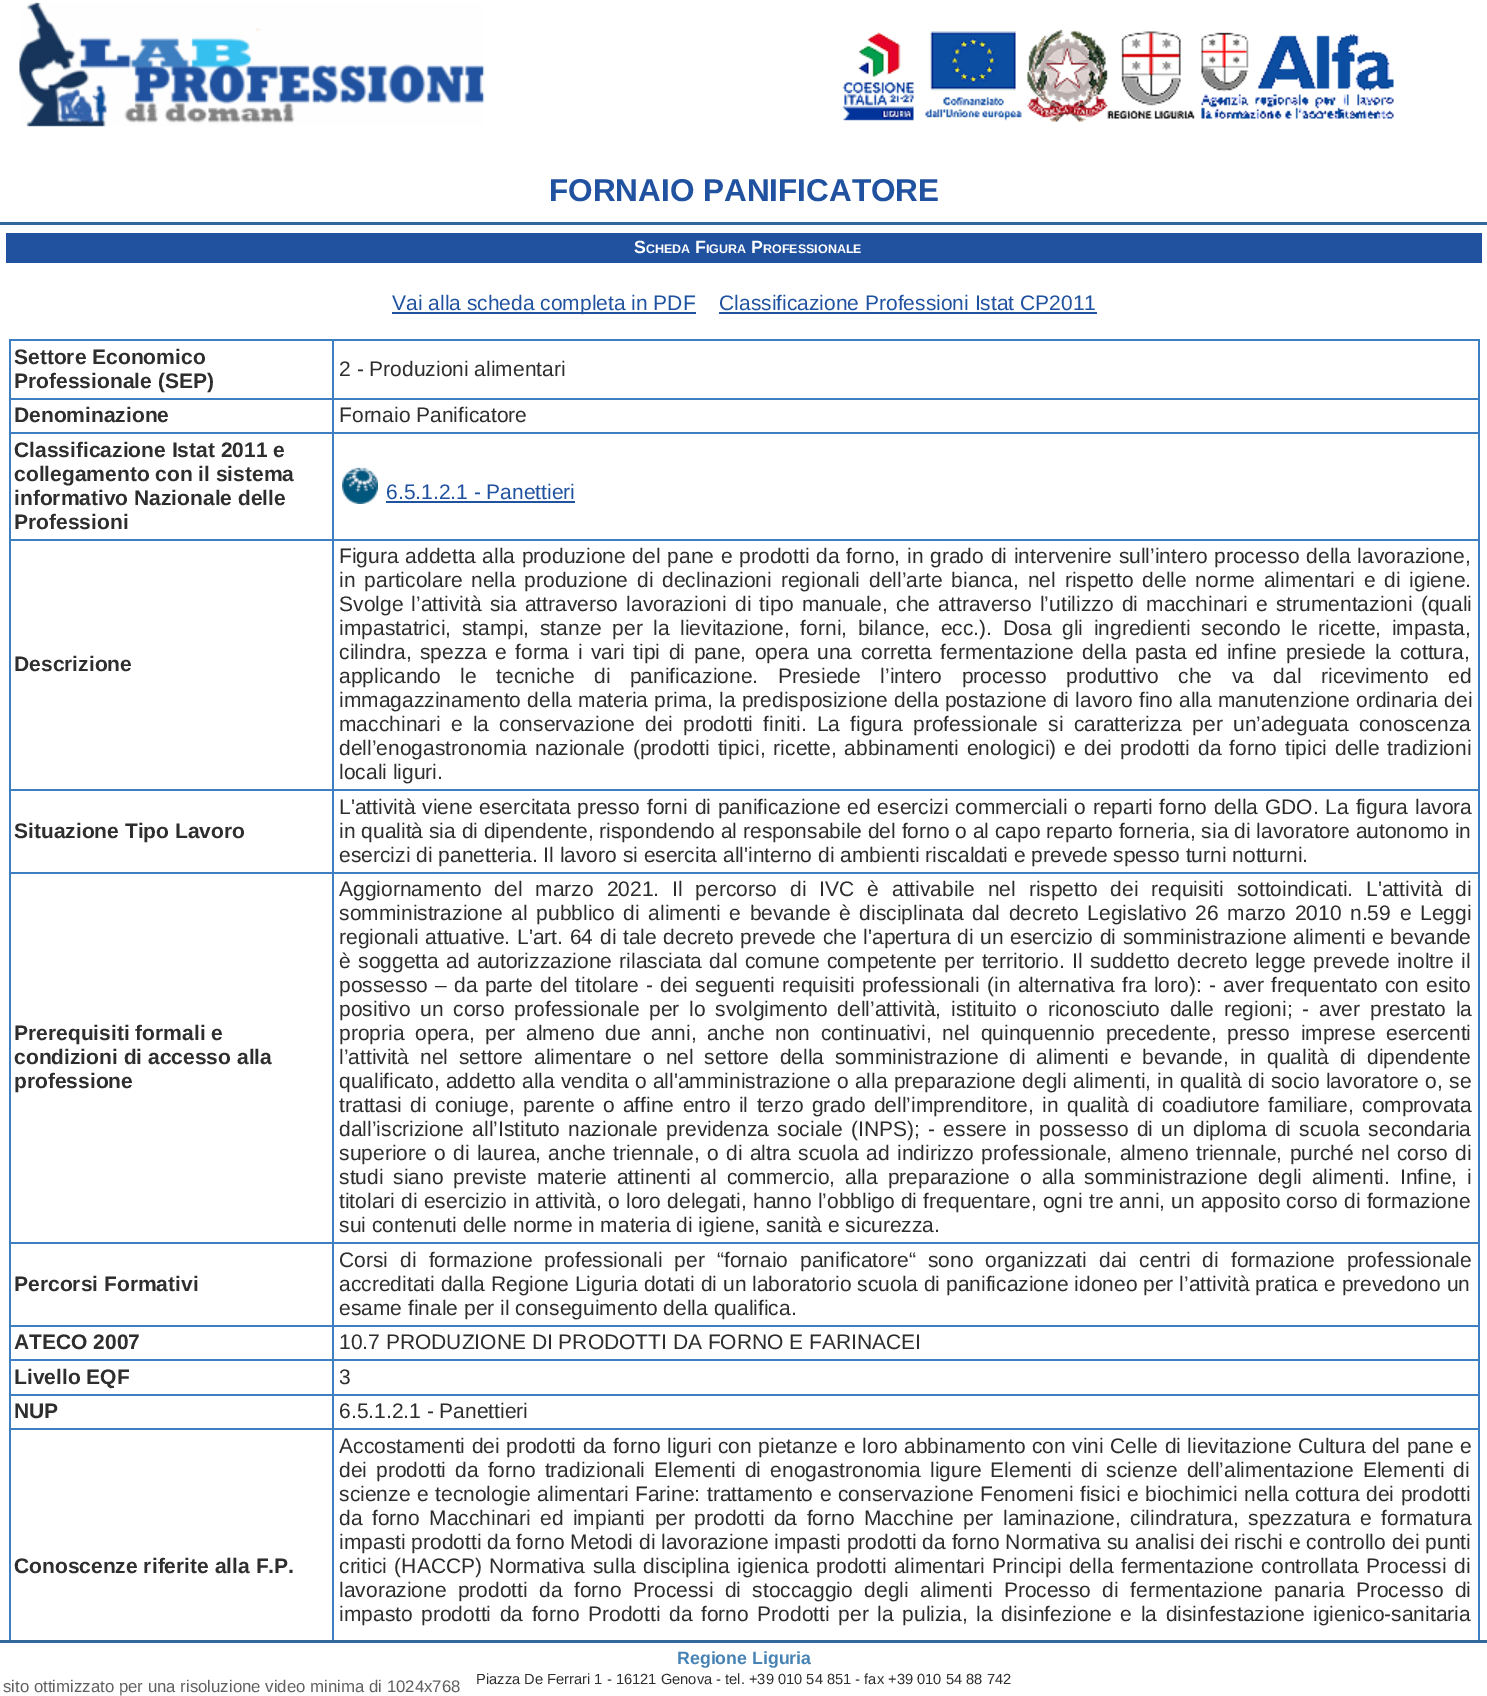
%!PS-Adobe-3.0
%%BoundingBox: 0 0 1487 1696
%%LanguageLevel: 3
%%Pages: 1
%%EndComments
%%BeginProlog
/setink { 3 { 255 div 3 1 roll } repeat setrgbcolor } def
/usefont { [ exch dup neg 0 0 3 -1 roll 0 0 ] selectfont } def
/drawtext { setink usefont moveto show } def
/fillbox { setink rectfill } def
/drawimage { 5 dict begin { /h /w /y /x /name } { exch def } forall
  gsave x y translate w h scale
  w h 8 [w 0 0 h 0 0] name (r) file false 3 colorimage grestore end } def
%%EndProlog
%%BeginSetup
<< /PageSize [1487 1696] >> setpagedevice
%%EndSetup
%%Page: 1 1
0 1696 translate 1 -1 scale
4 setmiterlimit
0 0 1487 1696 255 255 255 fillbox
(assets/img1.rgb) 19 2 466 125 drawimage
(assets/img2.rgb) 842 29 552 93 drawimage
(FORNAIO PANIFICATORE) 549 201 /LiberationSans-Bold 31.5 32 82 160 drawtext
0 222 1487 3 51 102 153 fillbox
0 1640 1487 3 51 102 153 fillbox
6 233 1476 30 32 82 160 fillbox
(S) 634 253 /LiberationSans-Bold 17.75 255 255 255 drawtext
(CHEDA) 646 253 /LiberationSans-Bold 12.5 255 255 255 drawtext
(F) 695 253 /LiberationSans-Bold 17.75 255 255 255 drawtext
(IGURA) 706 253 /LiberationSans-Bold 12.5 255 255 255 drawtext
(P) 751 253 /LiberationSans-Bold 17.75 255 255 255 drawtext
(ROFESSIONALE) 763 253 /LiberationSans-Bold 12.5 255 255 255 drawtext
392 312 304 2 32 82 160 fillbox
(Vai alla scheda completa in PDF) 392 310 /LiberationSans-Regular 21 32 82 160 drawtext
(Classificazione Professioni Istat CP2011) 719 310 /LiberationSans-Regular 21 32 82 160 drawtext
719 312 378 2 32 82 160 fillbox
9 339 1470 2 61 127 193 fillbox
1478 339 2 1301 61 127 193 fillbox
9 339 2 1301 61 127 193 fillbox
(Settore Economico) 14 364 /LiberationSans-Bold 21 46 46 46 drawtext
(Professionale \(SEP\)) 14 388 /LiberationSans-Bold 21 46 46 46 drawtext
332 398 1147 2 61 127 193 fillbox
332 432 1147 2 61 127 193 fillbox
332 539 1147 2 61 127 193 fillbox
332 789 1147 2 61 127 193 fillbox
332 872 1147 2 61 127 193 fillbox
332 1242 1147 2 61 127 193 fillbox
332 1325 1147 2 61 127 193 fillbox
332 1359 1147 2 61 127 193 fillbox
332 1394 1147 2 61 127 193 fillbox
332 1428 1147 2 61 127 193 fillbox
332 1428 2 212 61 127 193 fillbox
9 1428 324 2 61 127 193 fillbox
332 1394 2 36 61 127 193 fillbox
9 1394 324 2 61 127 193 fillbox
332 1359 2 36 61 127 193 fillbox
9 1359 324 2 61 127 193 fillbox
332 1325 2 36 61 127 193 fillbox
9 1325 324 2 61 127 193 fillbox
332 1242 2 84 61 127 193 fillbox
9 1242 324 2 61 127 193 fillbox
332 872 2 372 61 127 193 fillbox
9 872 324 2 61 127 193 fillbox
332 789 2 84 61 127 193 fillbox
9 789 324 2 61 127 193 fillbox
332 539 2 252 61 127 193 fillbox
9 539 324 2 61 127 193 fillbox
332 432 2 108 61 127 193 fillbox
9 432 324 2 61 127 193 fillbox
332 398 2 36 61 127 193 fillbox
9 398 324 2 61 127 193 fillbox
332 339 2 60 61 127 193 fillbox
(2 - Produzioni alimentari) 339 376 /LiberationSans-Regular 21 46 46 46 drawtext
(Denominazione) 14 422 /LiberationSans-Bold 21 46 46 46 drawtext
(Fornaio Panificatore) 339 422 /LiberationSans-Regular 21 46 46 46 drawtext
(Classificazione Istat 2011 e) 14 457 /LiberationSans-Bold 21 46 46 46 drawtext
(collegamento con il sistema) 14 481 /LiberationSans-Bold 21 46 46 46 drawtext
(informativo Nazionale delle) 14 505 /LiberationSans-Bold 21 46 46 46 drawtext
(Professioni) 14 529 /LiberationSans-Bold 21 46 46 46 drawtext
(assets/img3.rgb) 342 467 36 37 drawimage
(6.5.1.2.1 - Panettieri) 386 499 /LiberationSans-Regular 21 32 82 160 drawtext
386 501 189 2 32 82 160 fillbox
(Descrizione) 14 671 /LiberationSans-Bold 21 46 46 46 drawtext
/LiberationSans-Regular 21 usefont
339 563 moveto 1 0 32 (Figura addetta alla produzione del pane e prodotti da forno, in grado di intervenire sull’intero processo della lavorazione,) widthshow
339 587 moveto 3 0 32 (in particolare nella produzione di declinazioni regionali dell’arte bianca, nel rispetto delle norme alimentari e di igiene.) widthshow
339 611 moveto 2.4 0 32 (Svolge l’attività sia attraverso lavorazioni di tipo manuale, che attraverso l’utilizzo di macchinari e strumentazioni \(quali) widthshow
339 635 moveto 4.75 0 32 (impastatrici, stampi, stanze per la lievitazione, forni, bilance, ecc.\). Dosa gli ingredienti secondo le ricette, impasta,) widthshow
339 659 moveto 2.75 0 32 (cilindra, spezza e forma i vari tipi di pane, opera una corretta fermentazione della pasta ed infine presiede la cottura,) widthshow
339 683 moveto 13.75 0 32 (applicando le tecniche di panificazione. Presiede l’intero processo produttivo che va dal ricevimento ed) widthshow
339 707 moveto 0.5 0 32 (immagazzinamento della materia prima, la predisposizione della postazione di lavoro fino alla manutenzione ordinaria dei) widthshow
339 731 moveto 4.4 0 32 (macchinari e la conservazione dei prodotti finiti. La figura professionale si caratterizza per un’adeguata conoscenza) widthshow
339 755 moveto 2.1 0 32 (dell’enogastronomia nazionale \(prodotti tipici, ricette, abbinamenti enologici\) e dei prodotti da forno tipici delle tradizioni) widthshow
(locali liguri.) 339 779 /LiberationSans-Regular 21 46 46 46 drawtext
(Situazione Tipo Lavoro) 14 838 /LiberationSans-Bold 21 46 46 46 drawtext
/LiberationSans-Regular 21 usefont
339 814 moveto 1 0 32 (L'attività viene esercitata presso forni di panificazione ed esercizi commerciali o reparti forno della GDO. La figura lavora) widthshow
(in qualità sia di dipendente, rispondendo al responsabile del forno o al capo reparto forneria, sia di lavoratore autonomo in) 339 838 /LiberationSans-Regular 21 46 46 46 drawtext
(esercizi di panetteria. Il lavoro si esercita all'interno di ambienti riscaldati e prevede spesso turni notturni.) 339 862 /LiberationSans-Regular 21 46 46 46 drawtext
(Prerequisiti formali e) 14 1040 /LiberationSans-Bold 21 46 46 46 drawtext
(condizioni di accesso alla) 14 1064 /LiberationSans-Bold 21 46 46 46 drawtext
(professione) 14 1088 /LiberationSans-Bold 21 46 46 46 drawtext
/LiberationSans-Regular 21 usefont
339 896 moveto 7.1 0 32 (Aggiornamento del marzo 2021. Il percorso di IVC è attivabile nel rispetto dei requisiti sottoindicati.) widthshow
1366 896 moveto 7.1 0 32 (L'attività di) widthshow
339 920 moveto 2.9 0 32 (somministrazione al pubblico di alimenti e bevande è disciplinata dal decreto Legislativo 26 marzo 2010 n.59 e Leggi) widthshow
339 944 moveto 0.9 0 32 (regionali attuative. L'art. 64 di tale decreto prevede che l'apertura di un esercizio di somministrazione alimenti e bevande) widthshow
339 968 moveto 1.5 0 32 (è soggetta ad autorizzazione rilasciata dal comune competente per territorio. Il suddetto decreto legge prevede inoltre il) widthshow
339 992 moveto 1.5 0 32 (possesso – da parte del titolare - dei seguenti requisiti professionali \(in alternativa fra loro\): - aver frequentato con esito) widthshow
339 1016 moveto 4 0 32 (positivo un corso professionale per lo svolgimento dell’attività, istituito o riconosciuto dalle regioni; - aver prestato la) widthshow
339 1040 moveto 4.75 0 32 (propria opera, per almeno due anni, anche non continuativi, nel quinquennio precedente, presso imprese esercenti) widthshow
339 1064 moveto 5.1 0 32 (l’attività nel settore alimentare o nel settore della somministrazione di alimenti e bevande, in qualità di dipendente) widthshow
339 1088 moveto 0.4 0 32 (qualificato, addetto alla vendita o all'amministrazione o alla preparazione degli alimenti, in qualità di socio lavoratore o, se) widthshow
339 1112 moveto 2.6 0 32 (trattasi di coniuge, parente o affine entro il terzo grado dell’imprenditore, in qualità di coadiutore familiare, comprovata) widthshow
339 1136 moveto 2.5 0 32 (dall’iscrizione all’Istituto nazionale previdenza sociale \(INPS\); - essere in possesso di un diploma di scuola secondaria) widthshow
339 1160 moveto 1.6 0 32 (superiore o di laurea, anche triennale, o di altra scuola ad indirizzo professionale, almeno triennale, purché nel corso di) widthshow
339 1184 moveto 4.1 0 32 (studi siano previste materie attinenti al commercio, alla preparazione o alla somministrazione degli alimenti. Infine, i) widthshow
339 1208 moveto 0.4 0 32 (titolari di esercizio in attività, o loro delegati, hanno l’obbligo di frequentare, ogni tre anni, un apposito corso di formazione) widthshow
(sui contenuti delle norme in materia di igiene, sanità e sicurezza.) 339 1232 /LiberationSans-Regular 21 46 46 46 drawtext
(Percorsi Formativi) 14 1291 /LiberationSans-Bold 21 46 46 46 drawtext
/LiberationSans-Regular 21 usefont
339 1267 moveto 6.25 0 32 (Corsi di formazione professionali per “fornaio panificatore“ sono organizzati dai centri di formazione professionale) widthshow
(accreditati dalla Regione Liguria dotati di un laboratorio scuola di panificazione idoneo per l’attività pratica e prevedono un) 339 1291 /LiberationSans-Regular 21 46 46 46 drawtext
(esame finale per il conseguimento della qualifica.) 339 1315 /LiberationSans-Regular 21 46 46 46 drawtext
(ATECO 2007) 14 1349 /LiberationSans-Bold 21 46 46 46 drawtext
(10.7 PRODUZIONE DI PRODOTTI DA FORNO E FARINACEI) 339 1349 /LiberationSans-Regular 21 46 46 46 drawtext
(Livello EQF) 14 1384 /LiberationSans-Bold 21 46 46 46 drawtext
(3) 339 1384 /LiberationSans-Regular 21 46 46 46 drawtext
(NUP) 14 1418 /LiberationSans-Bold 21 46 46 46 drawtext
(6.5.1.2.1 - Panettieri) 339 1418 /LiberationSans-Regular 21 46 46 46 drawtext
(Conoscenze riferite alla F.P.) 14 1573 /LiberationSans-Bold 21 46 46 46 drawtext
/LiberationSans-Regular 21 usefont
339 1453 moveto 0.7 0 32 (Accostamenti dei prodotti da forno liguri con pietanze e loro abbinamento con vini Celle di lievitazione Cultura del pane e) widthshow
339 1477 moveto 3.25 0 32 (dei prodotti da forno tradizionali Elementi di enogastronomia ligure Elementi di scienze dell’alimentazione Elementi di) widthshow
339 1501 moveto 0.75 0 32 (scienze e tecnologie alimentari Farine: trattamento e conservazione Fenomeni fisici e biochimici nella cottura dei prodotti) widthshow
339 1525 moveto 3.6 0 32 (da forno Macchinari ed impianti per prodotti da forno Macchine per laminazione, cilindratura, spezzatura e formatura) widthshow
(impasti prodotti da forno Metodi di lavorazione impasti prodotti da forno Normativa su analisi dei rischi e controllo dei punti) 339 1549 /LiberationSans-Regular 21 46 46 46 drawtext
339 1573 moveto 1.75 0 32 (critici \(HACCP\) Normativa sulla disciplina igienica prodotti alimentari Principi della fermentazione controllata Processi di) widthshow
339 1597 moveto 5.5 0 32 (lavorazione prodotti da forno Processi di stoccaggio degli alimenti Processo di fermentazione panaria Processo di) widthshow
339 1621 moveto 2.75 0 32 (impasto prodotti da forno Prodotti da forno Prodotti per la pulizia, la disinfezione e la disinfestazione igienico-sanitaria) widthshow
(Regione Liguria) 677 1664 /LiberationSans-Bold 17.75 70 130 180 drawtext
(sito ottimizzato per una risoluzione video minima di 1024x768) 3 1692 /LiberationSans-Regular 16.8 96 96 96 drawtext
(Piazza De Ferrari 1 - 16121 Genova - tel. +39 010 54 851 - fax +39 010 54 88 742) 476 1684 /LiberationSans-Regular 14.7 46 46 46 drawtext
showpage
%%EOF
